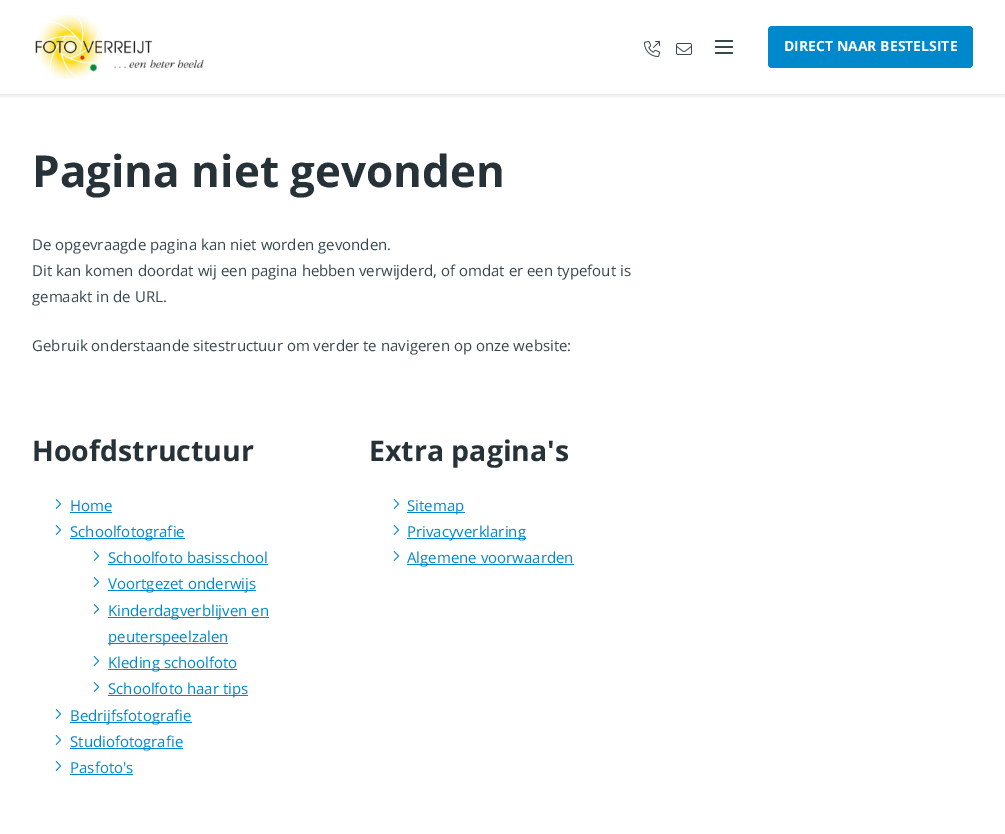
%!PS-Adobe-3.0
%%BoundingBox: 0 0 1005 834
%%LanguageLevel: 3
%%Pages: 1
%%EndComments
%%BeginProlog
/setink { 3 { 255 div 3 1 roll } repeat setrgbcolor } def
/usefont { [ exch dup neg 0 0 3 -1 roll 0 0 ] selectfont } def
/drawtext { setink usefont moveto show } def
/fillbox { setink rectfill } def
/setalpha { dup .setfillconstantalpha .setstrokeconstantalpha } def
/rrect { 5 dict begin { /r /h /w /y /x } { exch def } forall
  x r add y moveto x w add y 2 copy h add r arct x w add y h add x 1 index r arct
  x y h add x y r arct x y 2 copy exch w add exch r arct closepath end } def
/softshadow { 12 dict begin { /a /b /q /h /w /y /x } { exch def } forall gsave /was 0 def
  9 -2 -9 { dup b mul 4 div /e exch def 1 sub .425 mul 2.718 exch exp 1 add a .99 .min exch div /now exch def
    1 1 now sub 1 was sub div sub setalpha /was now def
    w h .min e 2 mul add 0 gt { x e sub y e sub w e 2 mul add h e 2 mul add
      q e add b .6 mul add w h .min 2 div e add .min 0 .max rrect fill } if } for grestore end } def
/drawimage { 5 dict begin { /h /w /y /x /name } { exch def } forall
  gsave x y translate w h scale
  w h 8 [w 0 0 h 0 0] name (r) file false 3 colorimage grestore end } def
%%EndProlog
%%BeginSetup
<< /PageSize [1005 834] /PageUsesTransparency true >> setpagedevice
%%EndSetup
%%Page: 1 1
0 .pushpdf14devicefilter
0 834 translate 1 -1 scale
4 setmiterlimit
0 0 1005 834 255 255 255 fillbox
gsave
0 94 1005 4 rectclip
0 0 0 setink
0 0 1005 94 0 4 0.15 softshadow
grestore
(assets/img1.rgb) 35 15 169 64 drawimage
(assets/img2.rgb) 644 41 16 16 drawimage
(assets/img3.rgb) 676 43 16 12 drawimage
55 71 79 setink
715 46 18 2 1 rrect fill
715 40 18 2 1 rrect fill
715 52 18 2 1 rrect fill
0 136 204 setink
768 26 205 42 4 rrect fill
(DIRECT NAAR BESTELSITE) 784 51 /OpenSans-Bold 14 255 255 255 drawtext
(Pagina niet gevonden) 32 187 /OpenSans-Bold 44 38 50 56 drawtext
(De opgevraagde pagina kan niet worden gevonden.) 32 250 /OpenSans-Regular 15 55 71 79 drawtext
(Dit kan komen doordat wij een pagina hebben verwijderd, of omdat er een typefout is) 32 276 /OpenSans-Regular 15 55 71 79 drawtext
(gemaakt in de URL.) 32 302 /OpenSans-Regular 15 55 71 79 drawtext
(Gebruik onderstaande sitestructuur om verder te navigeren op onze website:) 32 351 /OpenSans-Regular 15 55 71 79 drawtext
(Hoofdstructuur) 32 461 /OpenSans-Bold 28.5 38 50 56 drawtext
(assets/img4.rgb) 55 499 6 10 drawimage
(Home) 70 511 /OpenSans-Regular 15 0 136 204 drawtext
70 512 42 1 0 136 204 fillbox
(assets/img4.rgb) 55 525 6 10 drawimage
70 538 115 1 0 136 204 fillbox
(Schoolfotografie) 70 537 /OpenSans-Regular 15 0 136 204 drawtext
(assets/img4.rgb) 93 551 6 10 drawimage
(Schoolfoto basisschool) 108 563 /OpenSans-Regular 15 0 136 204 drawtext
108 564 160 1 0 136 204 fillbox
(assets/img4.rgb) 93 577 6 10 drawimage
108 590 148 1 0 136 204 fillbox
(Voortgezet onderwijs) 108 589 /OpenSans-Regular 15 0 136 204 drawtext
(assets/img4.rgb) 93 604 6 10 drawimage
108 617 161 1 0 136 204 fillbox
(Kinderdagverblijven en) 108 616 /OpenSans-Regular 15 0 136 204 drawtext
108 643 120 1 0 136 204 fillbox
(peuterspeelzalen) 108 642 /OpenSans-Regular 15 0 136 204 drawtext
(assets/img4.rgb) 93 656 6 10 drawimage
108 669 129 1 0 136 204 fillbox
(Kleding schoolfoto) 108 668 /OpenSans-Regular 15 0 136 204 drawtext
(assets/img4.rgb) 93 682 6 10 drawimage
108 695 140 1 0 136 204 fillbox
(Schoolfoto haar tips) 108 694 /OpenSans-Regular 15 0 136 204 drawtext
(assets/img4.rgb) 55 709 6 10 drawimage
70 722 122 1 0 136 204 fillbox
(Bedrijfsfotografie) 70 721 /OpenSans-Regular 15 0 136 204 drawtext
(assets/img4.rgb) 55 735 6 10 drawimage
70 748 113 1 0 136 204 fillbox
(Studiofotografie) 70 747 /OpenSans-Regular 15 0 136 204 drawtext
(assets/img4.rgb) 55 761 6 10 drawimage
(Pasfoto's) 70 773 /OpenSans-Regular 15 0 136 204 drawtext
70 774 63 1 0 136 204 fillbox
(Extra pagina's) 369 461 /OpenSans-Bold 28.5 38 50 56 drawtext
(assets/img4.rgb) 393 499 6 10 drawimage
407 512 58 1 0 136 204 fillbox
(Sitemap) 407 511 /OpenSans-Regular 15 0 136 204 drawtext
(assets/img4.rgb) 393 525 6 10 drawimage
407 538 119 1 0 136 204 fillbox
(Privacyverklaring) 407 537 /OpenSans-Regular 15 0 136 204 drawtext
(assets/img4.rgb) 393 551 6 10 drawimage
407 564 167 1 0 136 204 fillbox
(Algemene voorwaarden) 407 563 /OpenSans-Regular 15 0 136 204 drawtext
.poppdf14devicefilter showpage
%%EOF
